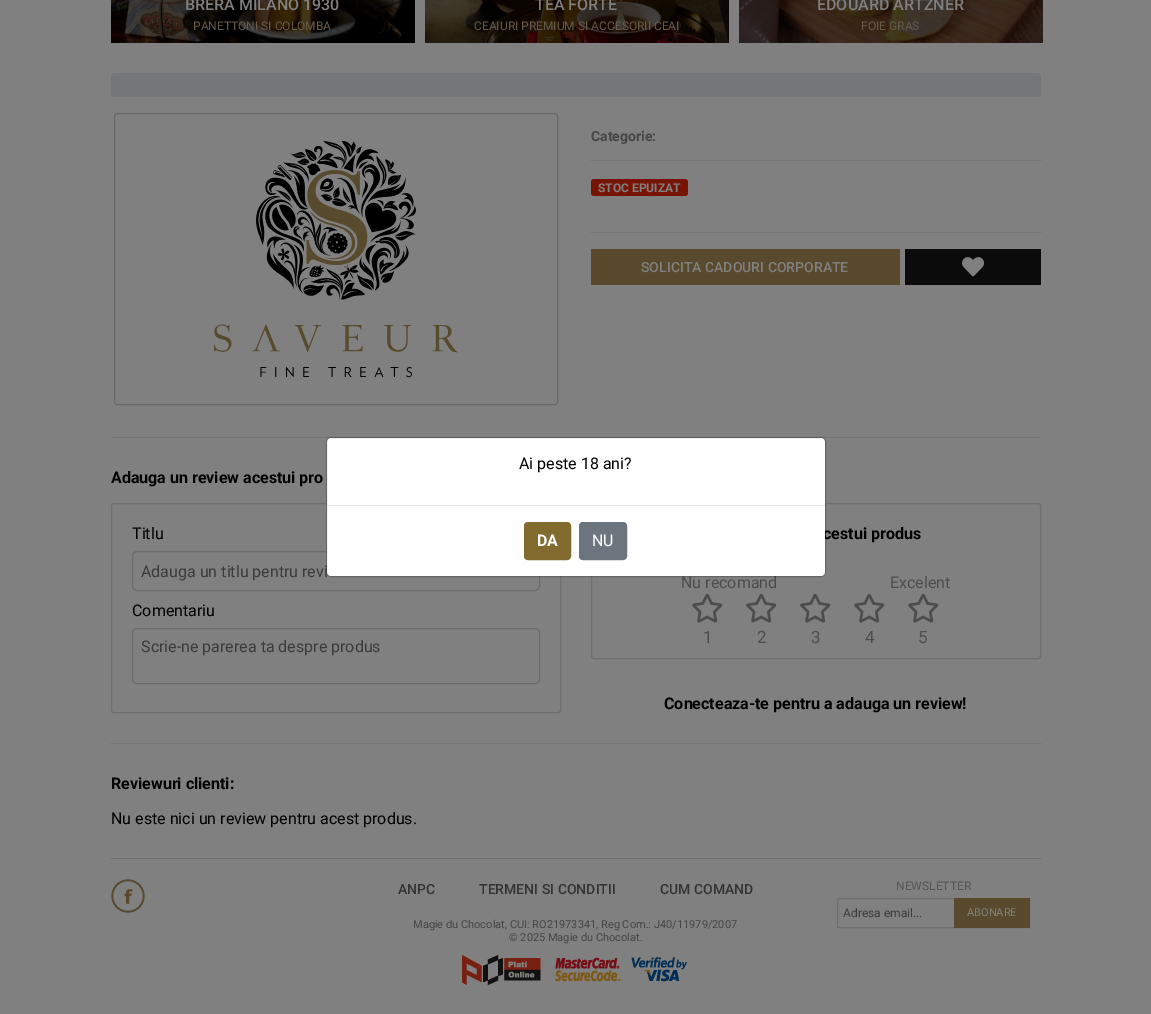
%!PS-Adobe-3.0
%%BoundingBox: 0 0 1151 1014
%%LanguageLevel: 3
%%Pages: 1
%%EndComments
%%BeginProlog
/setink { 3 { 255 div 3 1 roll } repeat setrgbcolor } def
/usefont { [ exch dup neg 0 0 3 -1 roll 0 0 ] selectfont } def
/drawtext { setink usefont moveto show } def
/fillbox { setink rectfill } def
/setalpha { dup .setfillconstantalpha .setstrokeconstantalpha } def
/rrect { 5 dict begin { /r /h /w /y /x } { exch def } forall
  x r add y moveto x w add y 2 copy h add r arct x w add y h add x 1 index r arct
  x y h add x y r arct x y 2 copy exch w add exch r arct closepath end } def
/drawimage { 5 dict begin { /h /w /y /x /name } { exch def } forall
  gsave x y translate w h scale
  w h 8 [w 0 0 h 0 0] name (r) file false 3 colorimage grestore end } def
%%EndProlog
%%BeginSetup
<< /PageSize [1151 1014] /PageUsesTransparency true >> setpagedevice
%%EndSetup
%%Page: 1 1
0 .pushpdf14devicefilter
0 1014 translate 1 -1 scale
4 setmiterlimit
0 0 1151 1014 128 128 128 fillbox
(assets/img1.rgb) 111 0 304 43 drawimage
(BRERA MILANO 1930) 185 10 /Roboto-Medium 16 128 128 128 drawtext
(PANETTONI SI COLOMBA) 193 30 /Roboto-Regular 12 103 90 73 drawtext
(assets/img2.rgb) 425 0 304 43 drawimage
(TEA FORTE) 535 10 /Roboto-Medium 16 128 128 128 drawtext
(CEAIURI PREMIUM SI ACCESORII CEAI) 474 30 /Roboto-Regular 12 103 90 73 drawtext
(assets/img3.rgb) 739 0 304 43 drawimage
(EDOUARD ARTZNER) 817 10 /Roboto-Medium 16 128 128 128 drawtext
(FOIE GRAS) 861 30 /Roboto-Regular 12 103 90 73 drawtext
117 118 120 setink
111 73 930 24 4 rrect fill
104 104 104 setink
114.5 113.5 443 291 2.5 rrect stroke
(assets/img4.rgb) 214 140 244 238 drawimage
(Categorie:) 591 141 /Roboto-Bold 14 68 68 68 drawtext
591 160 450 1 115 115 115 fillbox
120 20 5 setink
591 179 97 17 3 rrect fill
(STOC EPUIZAT) 598 192 /Roboto-Bold 12 128 128 128 drawtext
591 232 450 1 115 115 115 fillbox
591 249 309 36 89 74 45 fillbox
(SOLICITA CADOURI CORPORATE) 641 272 /Roboto-Medium 14 128 128 128 drawtext
905 249 136 36 11 11 11 fillbox
(assets/img5.rgb) 962 257 22 20 drawimage
111 437 930 1 115 115 115 fillbox
(Adauga un review acestui pro) 111 483 /Roboto-Bold 16 0 0 0 drawtext
111 111 111 setink
111.5 503.5 449 209 2.5 rrect stroke
(Titlu) 132 539 /Roboto-Regular 16 0 0 0 drawtext
107 107 105 setink
132.5 551.5 407 39 4.5 rrect stroke
(Adauga un titlu pentru revi) 141 577 /Roboto-Regular 16 59 59 59 drawtext
(Comentariu) 132 616 /Roboto-Regular 16 0 0 0 drawtext
107 107 105 setink
132.5 628.5 407 55 4.5 rrect stroke
(Scrie-ne parerea ta despre produs) 141 652 /Roboto-Regular 16 59 59 59 drawtext
111 111 111 setink
591.5 503.5 449 155 2.5 rrect stroke
(cestui produs) 823 539 /Roboto-Bold 16 0 0 0 drawtext
(Nu recomand) 681 588 /Roboto-Regular 16 77 77 77 drawtext
(Excelent) 890 588 /Roboto-Regular 16 77 77 77 drawtext
(assets/img6.rgb) 692 593 31 30 drawimage
(1) 703 643 /Roboto-Regular 17 77 77 77 drawtext
(assets/img6.rgb) 746 593 31 30 drawimage
(2) 757 643 /Roboto-Regular 17 77 77 77 drawtext
(assets/img6.rgb) 800 593 31 30 drawimage
(3) 811 643 /Roboto-Regular 17 77 77 77 drawtext
(assets/img6.rgb) 854 593 31 30 drawimage
(4) 865 643 /Roboto-Regular 17 77 77 77 drawtext
(assets/img6.rgb) 908 593 31 30 drawimage
(5) 918 643 /Roboto-Regular 17 77 77 77 drawtext
(Conecteaza-te pentru a adauga un review!) 664 709 /Roboto-Bold 16 0 0 0 drawtext
111 743 930 1 115 115 115 fillbox
(Reviewuri clienti:) 111 789 /Roboto-Bold 16 0 0 0 drawtext
(Nu este nici un review pentru acest produs.) 111 824 /Roboto-Regular 16 0 0 0 drawtext
255 255 255 setink
327 438 498 138 4 rrect fill
0.2 setalpha
0 0 0 setink
326.5 437.5 499 139 4.5 rrect stroke
1 setalpha
(Ai peste 18 ani?) 519 469 /Roboto-Regular 16 0 0 0 drawtext
327 505 498 1 222 226 230 fillbox
130 107 47 setink
524.5 522.5 46 37 3.5 rrect gsave fill grestore
stroke
(DA) 537 546 /Roboto-Bold 16 255 255 255 drawtext
108 117 125 setink
579.5 522.5 47 37 3.5 rrect gsave fill grestore
stroke
(NU) 592 546 /Roboto-Regular 16 255 255 255 drawtext
111 858 930 1 109 109 109 fillbox
(assets/img7.rgb) 111 879 34 34 drawimage
(ANPC) 398 894 /Roboto-Medium 14 51 51 51 drawtext
(TERMENI SI CONDITII) 479 894 /Roboto-Medium 14 51 51 51 drawtext
(CUM COMAND) 660 894 /Roboto-Medium 14 51 51 51 drawtext
(Magie du Chocolat, CUI: RO21973341, Reg Com.: J40/11979/2007) 413 928 /Roboto-Regular 11 68 68 68 drawtext
(© 2025 Magie du Chocolat.) 509 941 /Roboto-Regular 11 68 68 68 drawtext
(assets/img8.rgb) 462 955 225 30 drawimage
(NEWSLETTER) 896 890 /Roboto-Regular 12 85 85 85 drawtext
110 110 110 setink
837.5 898.5 192 29 rectstroke
(Adresa email...) 843 917 /Roboto-Regular 12 59 59 59 drawtext
954 898 76 30 89 74 45 fillbox
(ABONARE) 967 916 /Roboto-Regular 11 128 128 128 drawtext
.poppdf14devicefilter showpage
%%EOF
